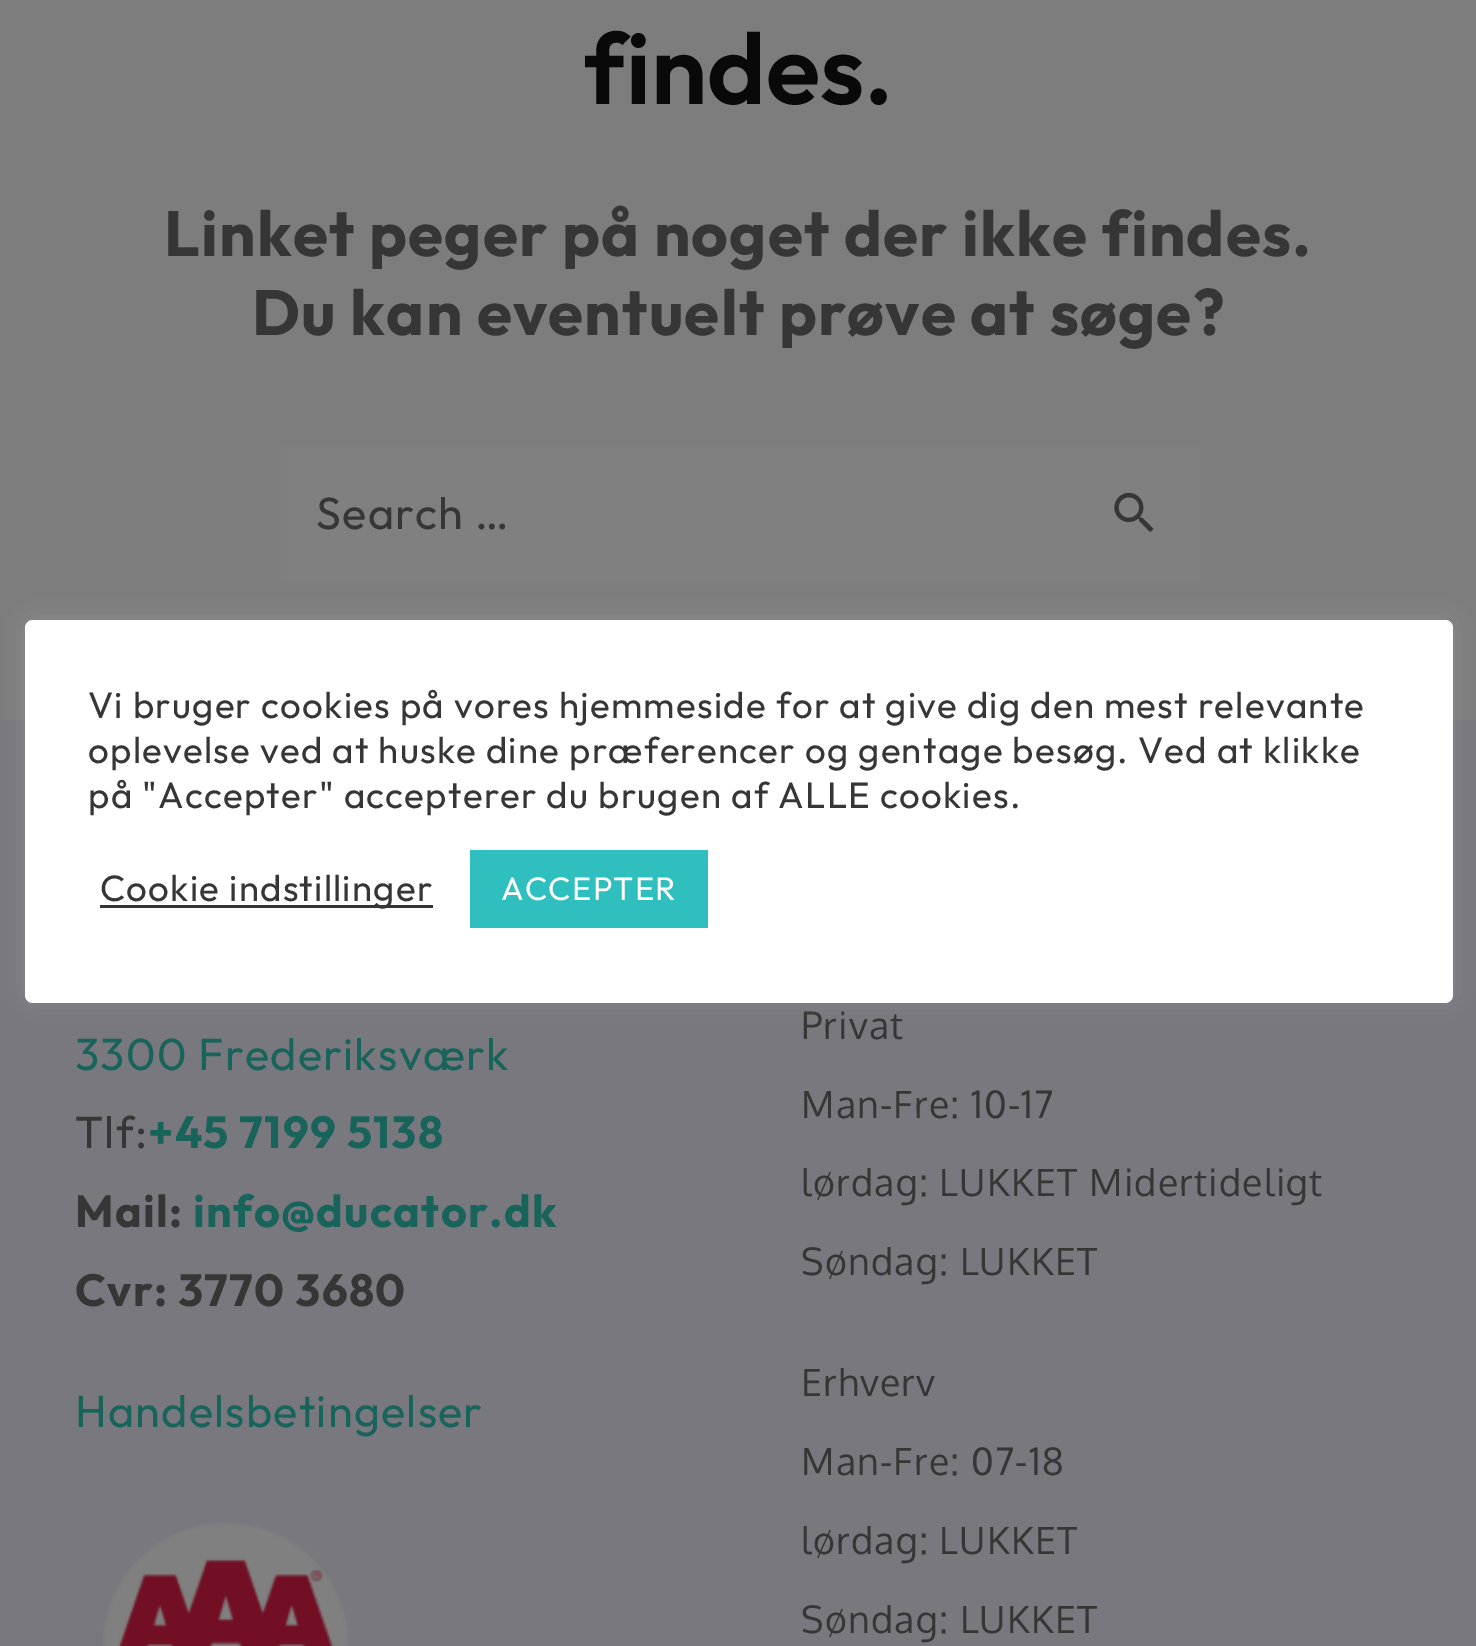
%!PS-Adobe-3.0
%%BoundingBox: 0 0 1476 1646
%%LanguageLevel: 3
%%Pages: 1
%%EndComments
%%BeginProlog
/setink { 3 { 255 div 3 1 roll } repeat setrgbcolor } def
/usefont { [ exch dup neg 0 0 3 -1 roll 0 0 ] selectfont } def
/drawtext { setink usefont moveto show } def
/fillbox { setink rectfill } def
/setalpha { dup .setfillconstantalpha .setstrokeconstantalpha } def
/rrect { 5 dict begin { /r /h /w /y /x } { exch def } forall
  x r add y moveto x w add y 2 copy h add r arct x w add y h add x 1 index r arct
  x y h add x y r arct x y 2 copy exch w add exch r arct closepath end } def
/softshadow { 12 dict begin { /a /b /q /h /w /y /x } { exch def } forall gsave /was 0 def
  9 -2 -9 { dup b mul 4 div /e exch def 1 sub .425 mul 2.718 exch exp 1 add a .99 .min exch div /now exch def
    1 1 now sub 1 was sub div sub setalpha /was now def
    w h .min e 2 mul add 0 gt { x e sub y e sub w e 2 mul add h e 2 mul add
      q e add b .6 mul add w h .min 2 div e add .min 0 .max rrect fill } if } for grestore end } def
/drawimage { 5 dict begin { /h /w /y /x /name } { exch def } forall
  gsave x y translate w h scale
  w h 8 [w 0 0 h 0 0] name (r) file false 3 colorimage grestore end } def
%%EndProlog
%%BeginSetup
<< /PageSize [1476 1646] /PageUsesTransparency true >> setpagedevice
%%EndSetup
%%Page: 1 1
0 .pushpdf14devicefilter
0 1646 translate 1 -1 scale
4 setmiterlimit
0 0 1476 1646 125 125 125 fillbox
(findes.) 584 104 /Outfit-SemiBold 100 9 9 9 drawtext
/Outfit-Bold 63.75 usefont
54 54 54 setink
164 256 moveto 1.25 0 (Linket peger på noget der ikke findes.) ashow
252 335 moveto 1.25 0 (Du kan eventuelt prøve at søge?) ashow
281 446 919 136 128 128 128 fillbox
/Outfit-Regular 45 usefont
54 54 54 setink
316 529 moveto 1.25 0 (Search …) ashow
(assets/img1.rgb) 1114 492 40 41 drawimage
0 720 1476 926 121 120 127 fillbox
24 100 91 setink
75 1070 moveto 1.25 0 (3300 Frederiksværk) ashow
54 54 54 setink
75 1148 moveto 1.25 0 (Tlf:) ashow
/Outfit-Bold 45 usefont
24 100 91 setink
148 1148 moveto 1.25 0 (+45 7199 5138) ashow
54 54 54 setink
75 1227 moveto 1.25 0 (Mail:) ashow
24 100 91 setink
193 1227 moveto 1.25 0 (info@ducator.dk) ashow
54 54 54 setink
75 1306 moveto 1.25 0 (Cvr: 3770 3680) ashow
/Outfit-Regular 45 usefont
24 100 91 setink
75 1427 moveto 1.25 0 (Handelsbetingelser) ashow
(assets/img2.rgb) 103 1522 246 124 drawimage
/Oxygen-Regular 37.5 usefont
54 54 54 setink
801 1039 moveto 1.25 0 (Privat) ashow
801 1118 moveto 1.25 0 (Man-Fre: 10-17) ashow
801 1196 moveto 1.25 0 (lørdag: LUKKET Midertideligt) ashow
801 1275 moveto 1.25 0 (Søndag: LUKKET) ashow
801 1396 moveto 1.25 0 (Erhverv) ashow
801 1475 moveto 1.25 0 (Man-Fre: 07-18) ashow
801 1554 moveto 1.25 0 (lørdag: LUKKET) ashow
801 1633 moveto 1.25 0 (Søndag: LUKKET) ashow
172 171 171 setink
25 618 1428 382 8 12.5 0.3 softshadow
255 255 255 setink
25 620 1428 383 8 rrect fill
/Outfit-Regular 36.65 usefont
54 54 54 setink
88 718 moveto 1.25 0 (Vi bruger cookies på vores hjemmeside for at give dig den mest relevante) ashow
88 763 moveto 1.25 0 (oplevelse ved at huske dine præferencer og gentage besøg. Ved at klikke) ashow
88 808 moveto 1.25 0 (på "Accepter" accepterer du brugen af ALLE cookies.) ashow
100 905 333 3 51 51 51 fillbox
54 54 54 setink
100 901 moveto 1.25 0 (Cookie indstillinger) ashow
470 850 238 78 47 191 191 fillbox
/Outfit-Regular 32.5 usefont
255 255 255 setink
501 900 moveto 1.25 0 (ACCEPTER) ashow
.poppdf14devicefilter showpage
%%EOF
